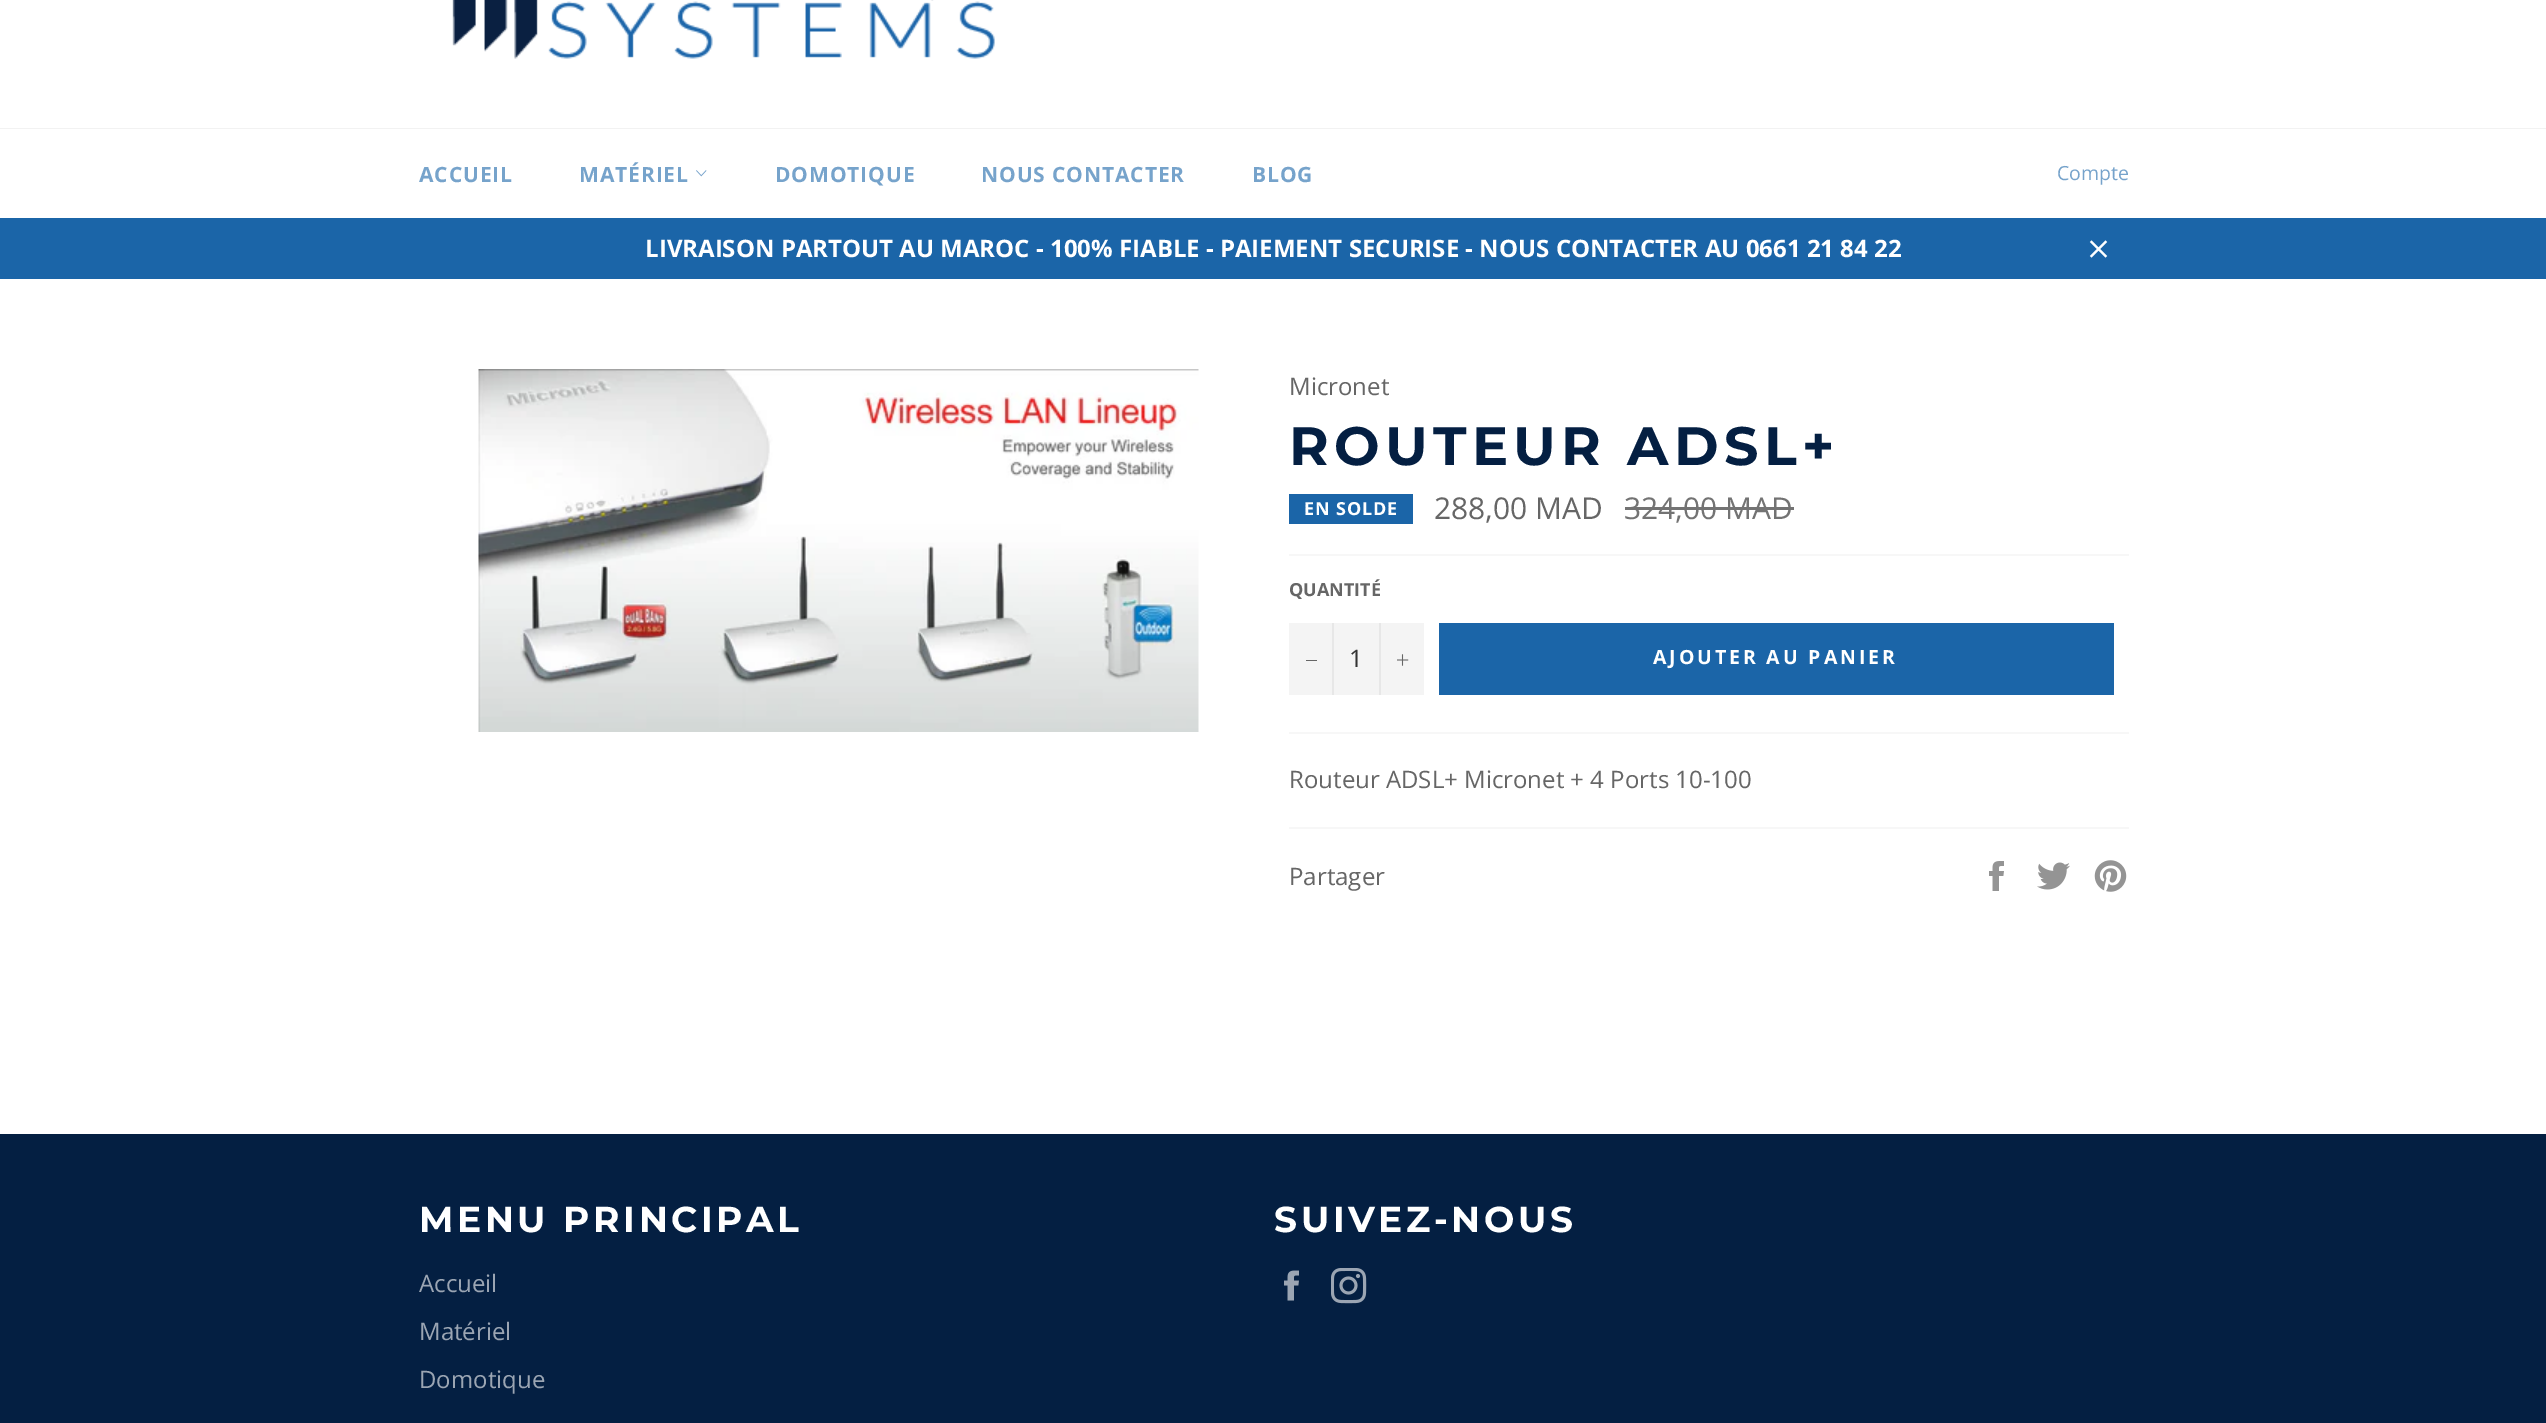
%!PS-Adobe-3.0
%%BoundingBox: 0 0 2546 1423
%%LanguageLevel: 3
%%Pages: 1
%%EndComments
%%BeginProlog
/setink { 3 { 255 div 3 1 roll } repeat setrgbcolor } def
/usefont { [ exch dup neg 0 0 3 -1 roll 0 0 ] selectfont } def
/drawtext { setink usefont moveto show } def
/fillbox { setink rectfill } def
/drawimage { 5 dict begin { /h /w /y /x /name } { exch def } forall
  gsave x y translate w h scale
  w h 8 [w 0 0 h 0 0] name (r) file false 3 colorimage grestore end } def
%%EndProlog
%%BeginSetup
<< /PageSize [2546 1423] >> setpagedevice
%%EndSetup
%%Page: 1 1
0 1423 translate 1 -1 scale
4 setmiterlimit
0 0 2546 1423 255 255 255 fillbox
(assets/img1.rgb) 452 0 543 59 drawimage
0 128 2546 1 242 242 242 fillbox
/OpenSans-Bold 21 usefont
118 163 203 setink
419 182 moveto 0.9 0 (ACCUEIL) ashow
579 182 moveto 0.9 0 (MATÉRIEL) ashow
(assets/img2.rgb) 696 170 11 7 drawimage
775 182 moveto 0.9 0 (DOMOTIQUE) ashow
981 182 moveto 0.9 0 (NOUS CONTACTER) ashow
1252 182 moveto 0.9 0 (BLOG) ashow
(Compte) 2057 180 /OpenSans-Regular 19.5 118 163 203 drawtext
0 218 2546 61 27 101 168 fillbox
(LIVRAISON PARTOUT AU MAROC - 100% FIABLE - PAIEMENT SECURISE - NOUS CONTACTER AU 0661 21 84 22) 645 257 /OpenSans-Bold 24 255 255 255 drawtext
(assets/img3.rgb) 2089 240 19 18 drawimage
(assets/img4.rgb) 478 369 721 363 drawimage
(Micronet) 1289 395 /OpenSans-Regular 24 102 102 102 drawtext
/Montserrat-Bold 54 usefont
4 31 66 setink
1289 465 moveto 5.4 0 (ROUTEUR ADSL+) ashow
1289 494 124 30 27 101 168 fillbox
/OpenSans-Bold 18 usefont
255 255 255 setink
1304 515 moveto 0.9 0 (EN SOLDE) ashow
(288,00 MAD) 1434 519 /OpenSans-Regular 30 102 102 102 drawtext
(324,00 MAD) 1624 519 /OpenSans-Regular 30 115 115 115 drawtext
1625 507 169 3 115 115 115 fillbox
1289 554 840 2 247 247 247 fillbox
(QUANTITÉ) 1289 596 /OpenSans-Bold 18 102 102 102 drawtext
1289 623 135 72 244 244 244 fillbox
1332 623 2 72 231 231 231 fillbox
1306 660 11 1 102 102 102 fillbox
(1) 1349 667 /OpenSans-Regular 24 51 51 51 drawtext
1379 623 2 72 231 231 231 fillbox
(assets/img5.rgb) 1397 654 12 12 drawimage
1439 623 675 72 27 101 168 fillbox
/OpenSans-Bold 19.5 usefont
255 255 255 setink
1653 664 moveto 2.9 0 (AJOUTER AU PANIER) ashow
1289 732 840 2 247 247 247 fillbox
(Routeur ADSL+ Micronet + 4 Ports 10-100) 1289 788 /OpenSans-Regular 24 102 102 102 drawtext
1289 827 840 2 247 247 247 fillbox
(Partager) 1289 885 /OpenSans-Regular 24 102 102 102 drawtext
(assets/img6.rgb) 1989 861 15 30 drawimage
(assets/img7.rgb) 2037 862 33 28 drawimage
(assets/img8.rgb) 2094 860 33 32 drawimage
0 1134 2546 289 4 31 66 fillbox
/Montserrat-Bold 36 usefont
255 255 255 setink
419 1232 moveto 3.6 0 (MENU PRINCIPAL) ashow
(Accueil) 419 1292 /OpenSans-Regular 24 155 165 179 drawtext
(Matériel) 419 1340 /OpenSans-Regular 24 155 165 179 drawtext
(Domotique) 419 1388 /OpenSans-Regular 24 155 165 179 drawtext
/Montserrat-Bold 36 usefont
255 255 255 setink
1274 1232 moveto 3.6 0 (SUIVEZ-NOUS) ashow
(assets/img9.rgb) 1284 1270 15 31 drawimage
(assets/img10.rgb) 1331 1268 36 36 drawimage
showpage
%%EOF
